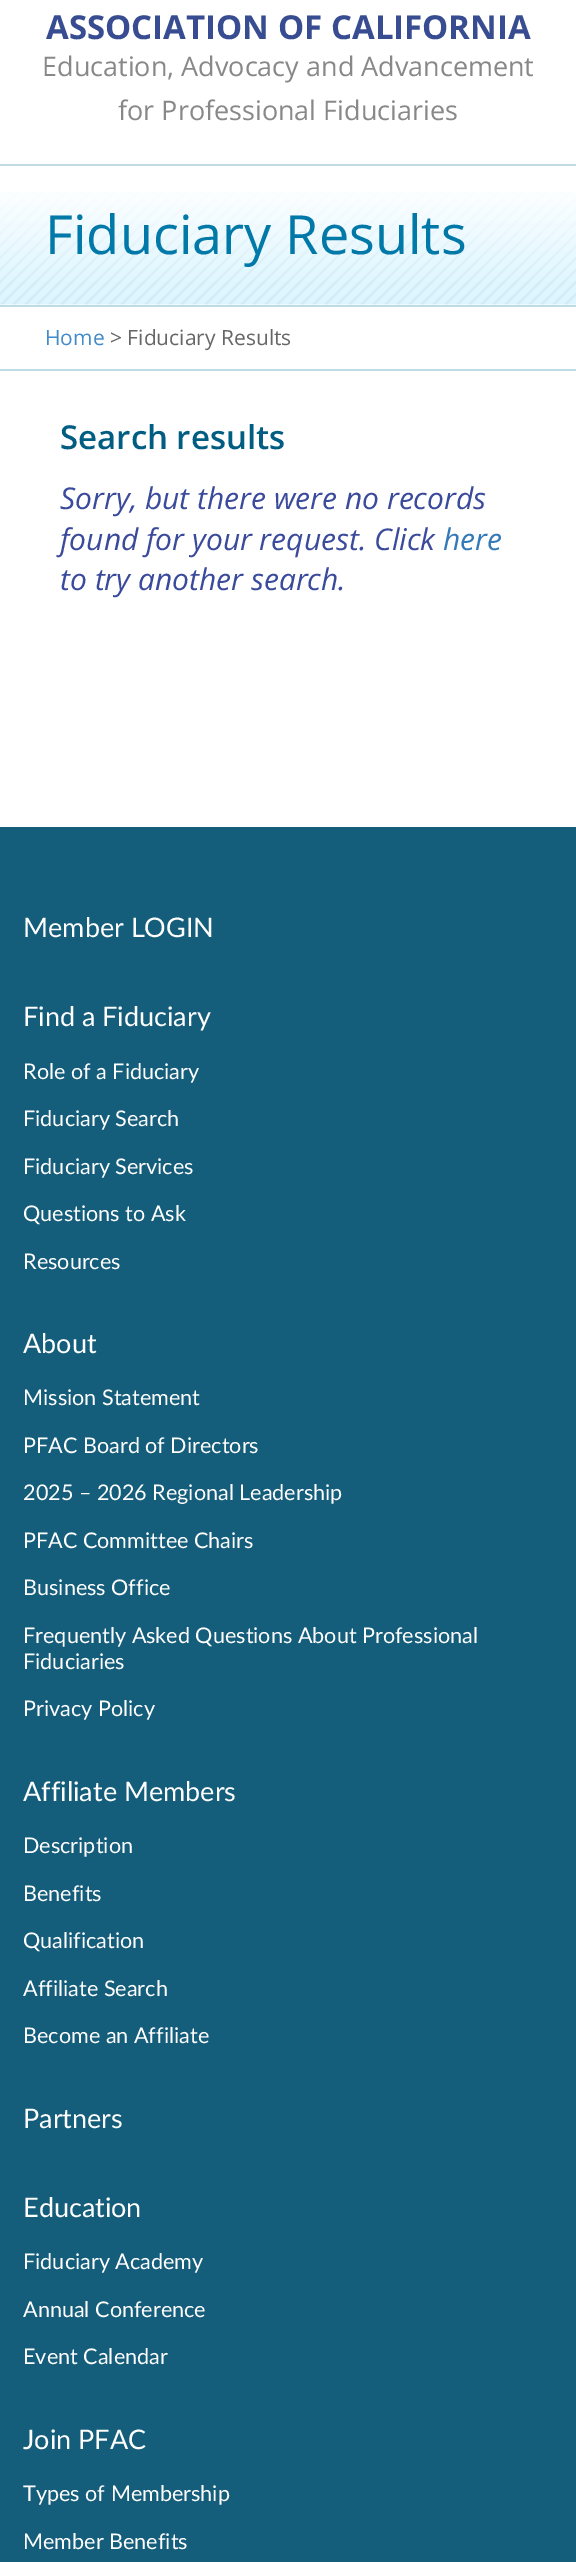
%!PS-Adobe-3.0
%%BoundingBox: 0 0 576 2562
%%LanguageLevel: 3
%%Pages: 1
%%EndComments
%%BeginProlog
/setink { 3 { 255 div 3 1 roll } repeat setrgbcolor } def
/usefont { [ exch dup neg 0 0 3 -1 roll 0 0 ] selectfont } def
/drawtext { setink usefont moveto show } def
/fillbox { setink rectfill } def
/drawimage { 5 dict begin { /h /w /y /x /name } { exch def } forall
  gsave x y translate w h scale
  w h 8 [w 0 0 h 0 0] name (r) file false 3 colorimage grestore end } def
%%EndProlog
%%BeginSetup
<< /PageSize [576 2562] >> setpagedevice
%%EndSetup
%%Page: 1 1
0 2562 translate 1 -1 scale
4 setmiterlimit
0 0 576 2562 255 255 255 fillbox
(ASSOCIATION OF CALIFORNIA) 46 39 /OpenSans-Bold 33 56 76 145 drawtext
(Education, Advocacy and Advancement) 42 76 /OpenSans-Regular 27 136 136 136 drawtext
(for Professional Fiduciaries) 118 120 /OpenSans-Regular 27 136 136 136 drawtext
(assets/img1.rgb) 0 192 576 113 drawimage
0 164 576 2 191 219 229 fillbox
0 305 576 2 191 219 229 fillbox
(Fiduciary Results) 45 254 /OpenSans-Regular 54 0 120 168 drawtext
0 369 576 2 191 219 229 fillbox
(Home) 45 345 /OpenSans-Regular 21 66 139 202 drawtext
(> Fiduciary Results) 110 345 /OpenSans-Regular 21 102 102 102 drawtext
(Search results) 60 449 /OpenSans-SemiBold 33 1 93 130 drawtext
(Sorry, but there were no records) 60 509 /OpenSans-Italic 30 59 75 156 drawtext
(found for your request. Click) 60 550 /OpenSans-Italic 30 59 75 156 drawtext
(here) 443 550 /OpenSans-Italic 30 51 122 183 drawtext
(to try another search.) 60 590 /OpenSans-Italic 30 59 75 156 drawtext
0 827 576 1735 20 93 123 fillbox
(Member LOGIN) 23 937 /Lato-Regular 27 255 255 255 drawtext
(Find a Fiduciary) 23 1026 /Lato-Regular 27 255 255 255 drawtext
(Role of a Fiduciary) 23 1079 /Lato-Regular 21.6 255 255 255 drawtext
(Fiduciary Search) 23 1126 /Lato-Regular 21.6 255 255 255 drawtext
(Fiduciary Services) 23 1174 /Lato-Regular 21.6 255 255 255 drawtext
(Questions to Ask) 23 1221 /Lato-Regular 21.6 255 255 255 drawtext
(Resources) 23 1269 /Lato-Regular 21.6 255 255 255 drawtext
(About) 23 1353 /Lato-Regular 27 255 255 255 drawtext
(Mission Statement) 23 1405 /Lato-Regular 21.6 255 255 255 drawtext
(PFAC Board of Directors) 23 1453 /Lato-Regular 21.6 255 255 255 drawtext
(2025 – 2026 Regional Leadership) 23 1500 /Lato-Regular 21.6 255 255 255 drawtext
(PFAC Committee Chairs) 23 1548 /Lato-Regular 21.6 255 255 255 drawtext
(Business Office) 23 1595 /Lato-Regular 21.6 255 255 255 drawtext
(Frequently Asked Questions About Professional) 23 1643 /Lato-Regular 21.6 255 255 255 drawtext
(Fiduciaries) 23 1669 /Lato-Regular 21.6 255 255 255 drawtext
(Privacy Policy) 23 1716 /Lato-Regular 21.6 255 255 255 drawtext
(Affiliate Members) 23 1801 /Lato-Regular 27 255 255 255 drawtext
(Description) 23 1853 /Lato-Regular 21.6 255 255 255 drawtext
(Benefits) 23 1901 /Lato-Regular 21.6 255 255 255 drawtext
(Qualification) 23 1948 /Lato-Regular 21.6 255 255 255 drawtext
(Affiliate Search) 23 1996 /Lato-Regular 21.6 255 255 255 drawtext
(Become an Affiliate) 23 2043 /Lato-Regular 21.6 255 255 255 drawtext
(Partners) 23 2128 /Lato-Regular 27 255 255 255 drawtext
(Education) 23 2217 /Lato-Regular 27 255 255 255 drawtext
(Fiduciary Academy) 23 2269 /Lato-Regular 21.6 255 255 255 drawtext
(Annual Conference) 23 2317 /Lato-Regular 21.6 255 255 255 drawtext
(Event Calendar) 23 2364 /Lato-Regular 21.6 255 255 255 drawtext
(Join PFAC) 23 2449 /Lato-Regular 27 255 255 255 drawtext
(Types of Membership) 23 2501 /Lato-Regular 21.6 255 255 255 drawtext
(Member Benefits) 23 2549 /Lato-Regular 21.6 255 255 255 drawtext
showpage
%%EOF
